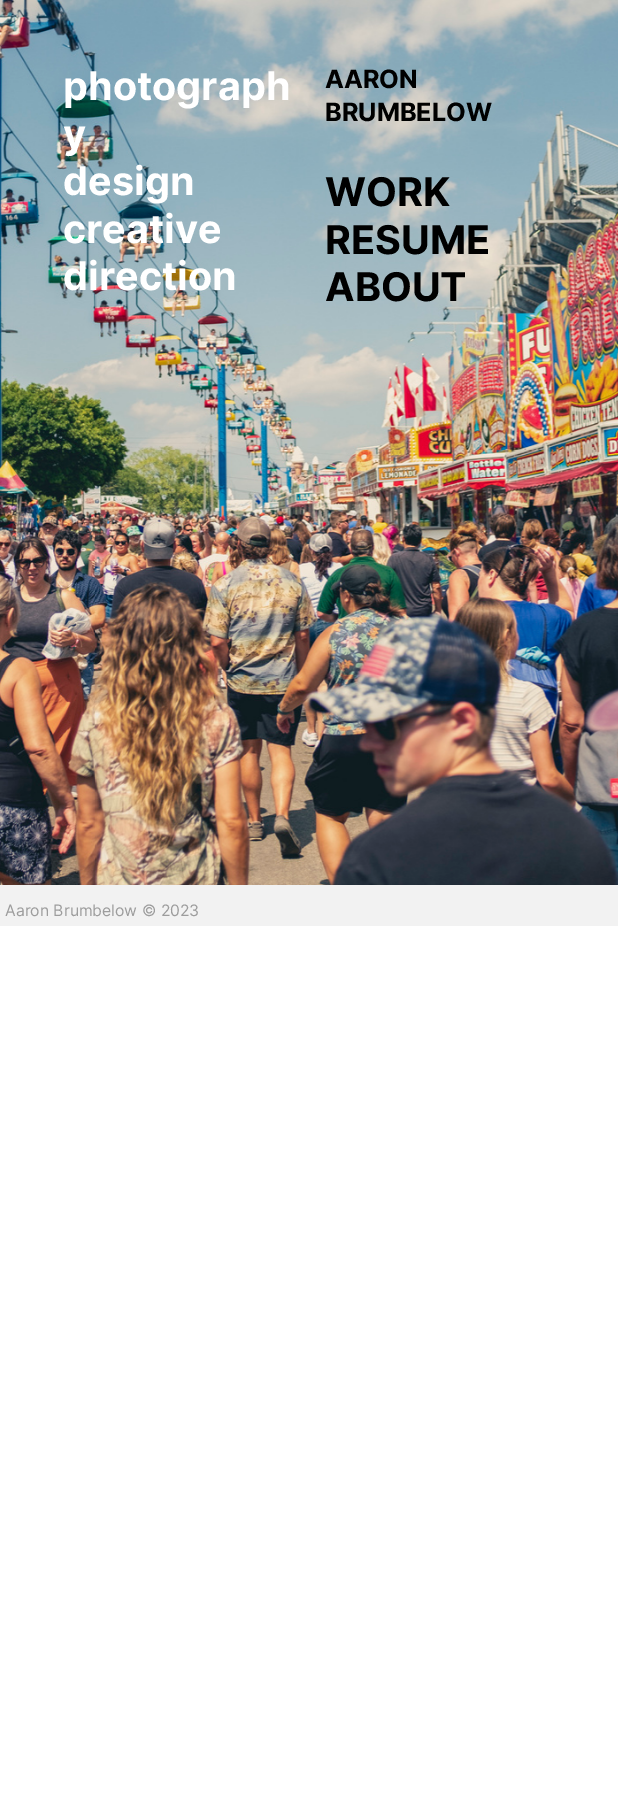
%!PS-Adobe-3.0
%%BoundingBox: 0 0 618 1793
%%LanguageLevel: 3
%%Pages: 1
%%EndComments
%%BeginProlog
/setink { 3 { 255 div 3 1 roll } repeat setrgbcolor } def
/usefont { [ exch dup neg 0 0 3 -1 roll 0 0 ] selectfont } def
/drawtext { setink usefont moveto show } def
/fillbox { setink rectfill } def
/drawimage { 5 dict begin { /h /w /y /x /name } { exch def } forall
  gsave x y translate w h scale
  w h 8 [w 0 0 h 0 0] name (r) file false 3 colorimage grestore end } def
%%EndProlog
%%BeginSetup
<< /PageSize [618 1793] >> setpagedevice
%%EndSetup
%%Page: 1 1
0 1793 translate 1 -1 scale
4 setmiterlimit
0 0 618 1793 255 255 255 fillbox
(assets/img1.rgb) 0 0 618 885 drawimage
(photograph) 63 100 /Inter-Bold 39.5 255 255 255 drawtext
(y) 63 148 /Inter-Bold 39.5 255 255 255 drawtext
(design) 63 195 /Inter-Bold 39.5 255 255 255 drawtext
(creative) 63 243 /Inter-Bold 39.5 255 255 255 drawtext
(direction) 63 290 /Inter-Bold 39.5 255 255 255 drawtext
(AARON) 325 88 /Inter-Bold 25.25 0 0 0 drawtext
(BRUMBELOW) 325 121 /Inter-Bold 25.25 0 0 0 drawtext
(WORK) 325 206 /Inter-Bold 39.5 0 0 0 drawtext
(RESUME) 325 254 /Inter-Bold 39.5 0 0 0 drawtext
(ABOUT) 325 301 /Inter-Bold 39.5 0 0 0 drawtext
0 885 618 41 242 242 242 fillbox
(Aaron Brumbelow © 2023) 5 916 /Inter-Regular 15.75 157 157 157 drawtext
showpage
%%EOF
